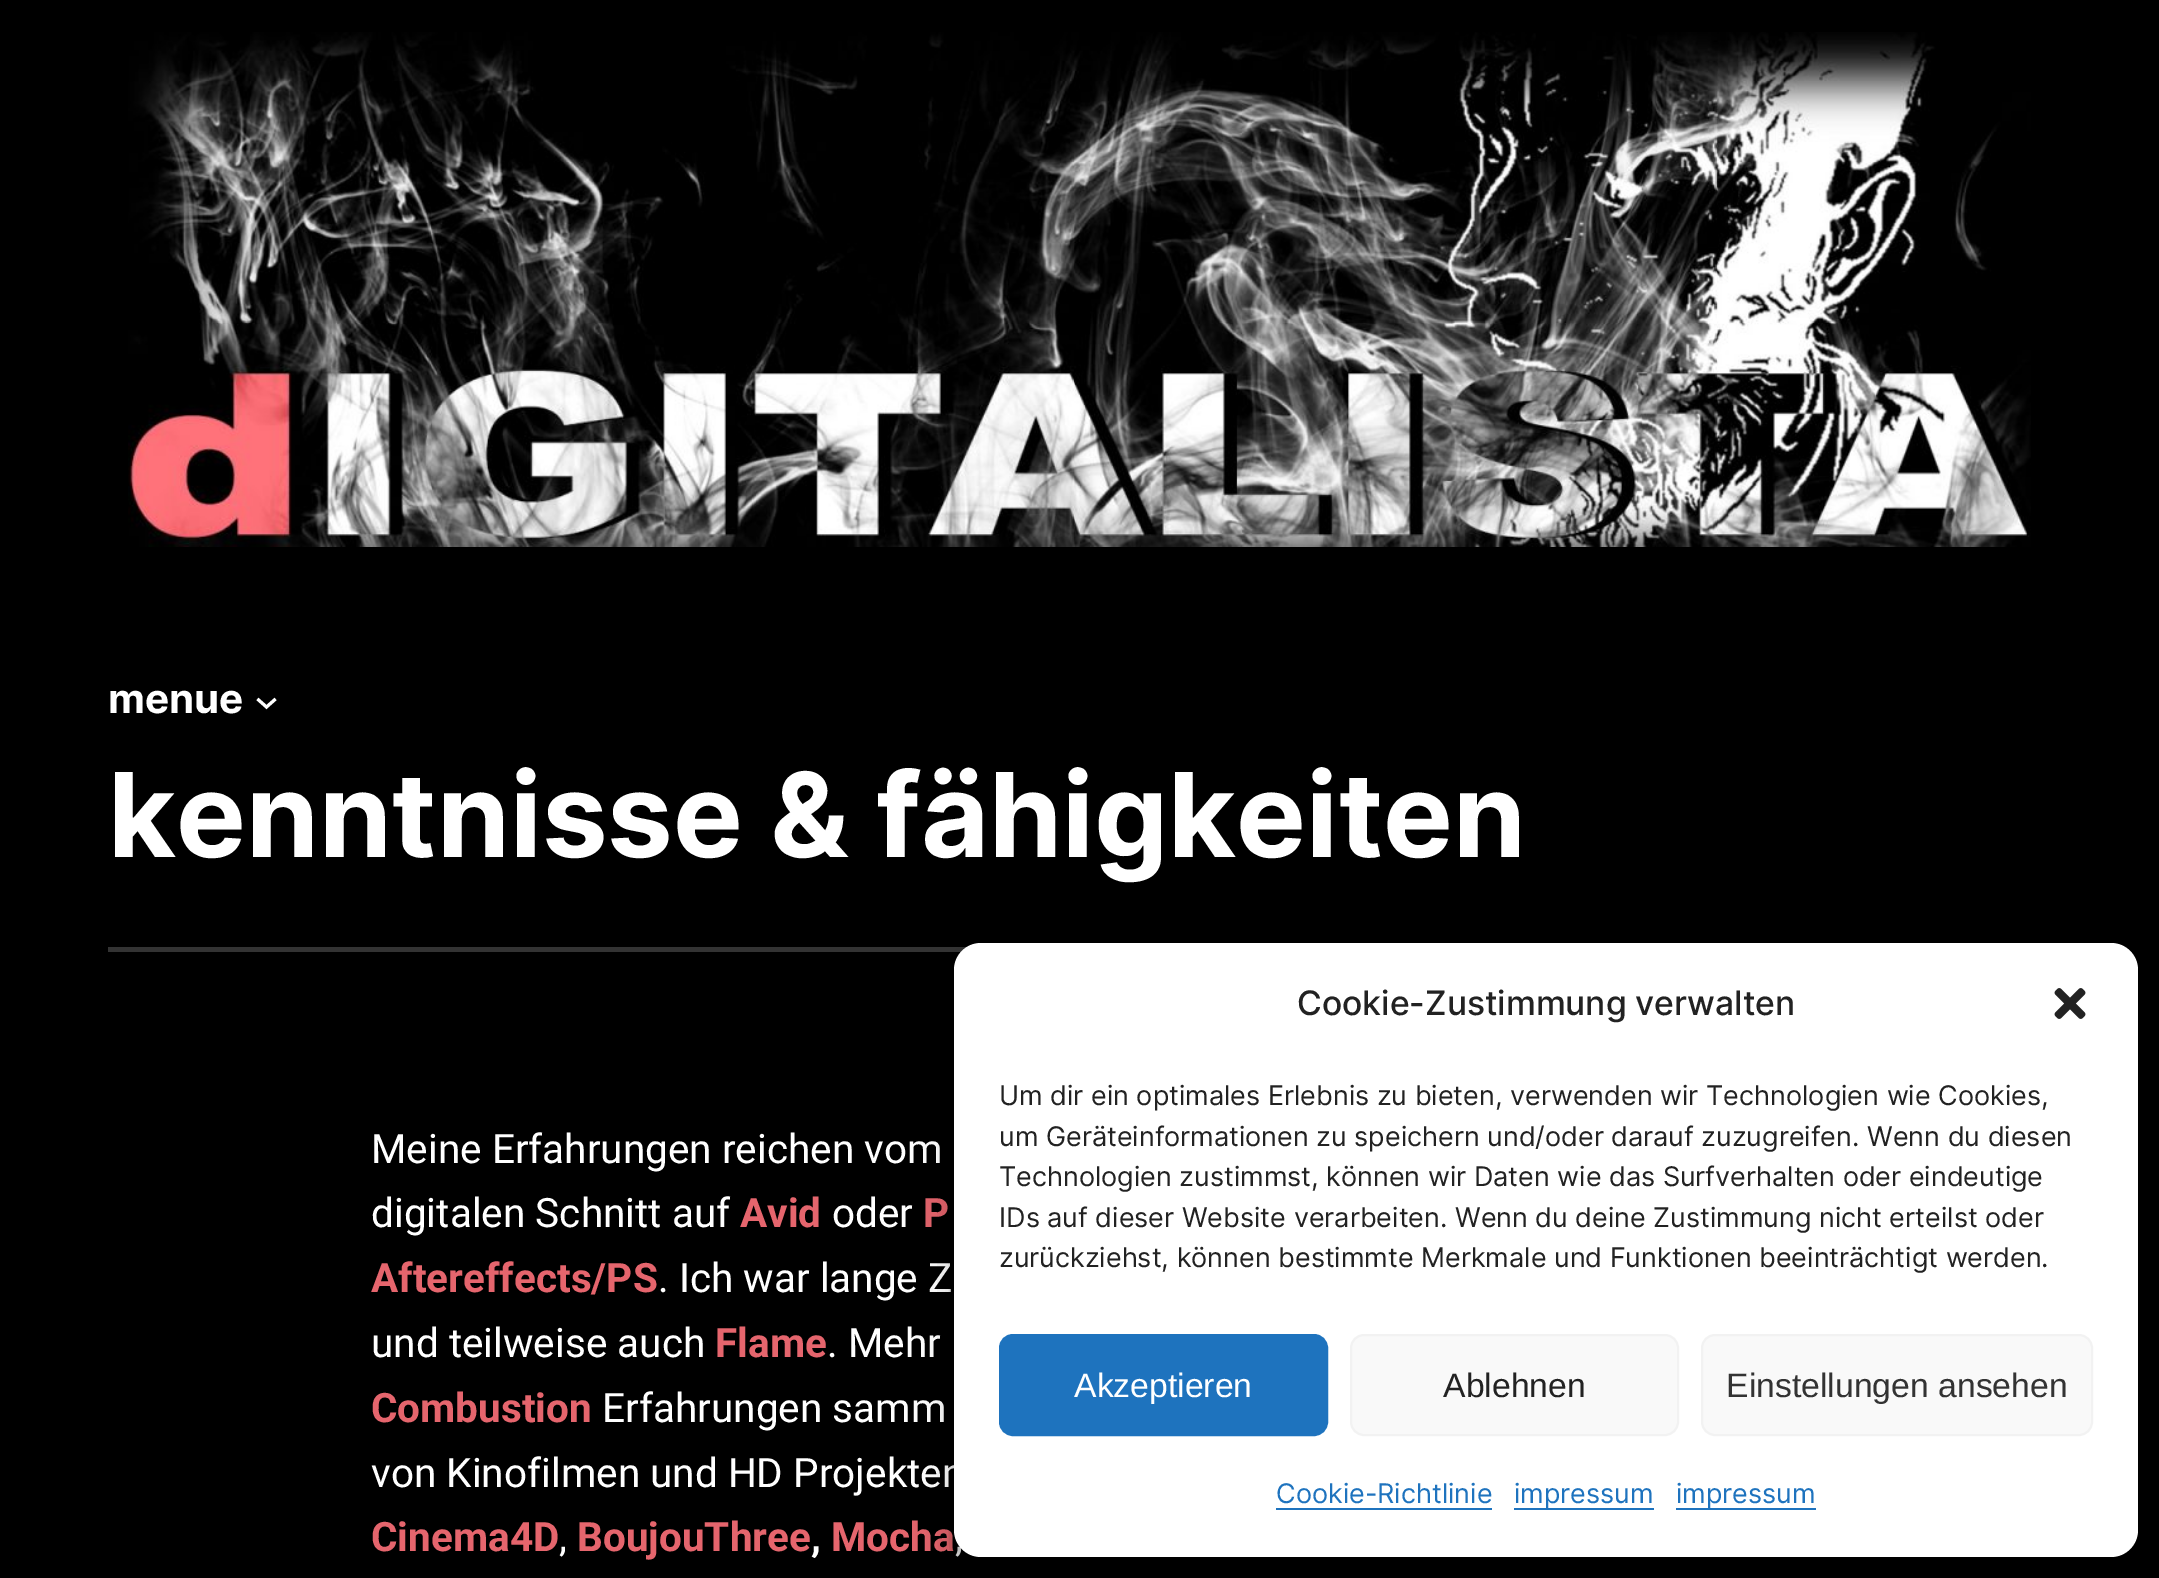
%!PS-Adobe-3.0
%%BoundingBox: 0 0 2159 1578
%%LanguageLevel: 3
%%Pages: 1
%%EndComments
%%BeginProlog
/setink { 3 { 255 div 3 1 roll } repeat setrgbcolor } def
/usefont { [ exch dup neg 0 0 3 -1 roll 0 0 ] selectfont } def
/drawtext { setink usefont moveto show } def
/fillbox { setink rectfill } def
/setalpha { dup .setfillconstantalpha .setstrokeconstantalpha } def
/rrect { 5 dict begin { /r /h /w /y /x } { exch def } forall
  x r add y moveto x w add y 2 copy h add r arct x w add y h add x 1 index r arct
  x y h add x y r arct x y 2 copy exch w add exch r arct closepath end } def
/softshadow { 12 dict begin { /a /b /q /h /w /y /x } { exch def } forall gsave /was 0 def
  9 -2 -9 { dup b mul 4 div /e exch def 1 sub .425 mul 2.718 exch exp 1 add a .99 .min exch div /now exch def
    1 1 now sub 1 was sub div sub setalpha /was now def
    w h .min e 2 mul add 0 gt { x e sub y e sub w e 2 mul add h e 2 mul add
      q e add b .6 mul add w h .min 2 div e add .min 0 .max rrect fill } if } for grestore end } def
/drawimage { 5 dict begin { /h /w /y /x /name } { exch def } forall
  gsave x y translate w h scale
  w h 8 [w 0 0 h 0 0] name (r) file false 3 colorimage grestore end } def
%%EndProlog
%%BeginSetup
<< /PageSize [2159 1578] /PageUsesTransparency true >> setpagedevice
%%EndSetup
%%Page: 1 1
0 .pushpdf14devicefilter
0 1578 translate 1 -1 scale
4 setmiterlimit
0 0 2159 1578 0 0 0 fillbox
(assets/img1.rgb) 128 32 1903 515 drawimage
(menue) 108 713 /Inter-Bold 40.5 255 255 255 drawtext
3 setlinewidth
257.5 699 moveto 266.5 707 lineto 275.5 699 lineto stroke
(kenntnisse & fähigkeiten) 108 857 /Inter-Bold 117 255 255 255 drawtext
108 947 859 5 51 51 51 fillbox
(Meine Erfahrungen reichen vom) 371 1163 /Roboto-Regular 40.5 255 255 255 drawtext
(digitalen Schnitt auf) 371 1227 /Roboto-Regular 40.5 255 255 255 drawtext
(Avid) 740 1227 /Roboto-Bold 40.5 229 101 109 drawtext
(oder) 832 1227 /Roboto-Regular 40.5 255 255 255 drawtext
(P) 923 1227 /Roboto-Bold 40.5 229 101 109 drawtext
(Aftereffects/PS) 371 1292 /Roboto-Bold 40.5 229 101 109 drawtext
(. Ich war lange Z) 658 1292 /Roboto-Regular 40.5 255 255 255 drawtext
(und teilweise auch) 371 1357 /Roboto-Regular 40.5 255 255 255 drawtext
(Flame) 715 1357 /Roboto-Bold 40.5 229 101 109 drawtext
(. Mehr) 827 1357 /Roboto-Regular 40.5 255 255 255 drawtext
(Combustion) 371 1422 /Roboto-Bold 40.5 229 101 109 drawtext
(Erfahrungen samm) 602 1422 /Roboto-Regular 40.5 255 255 255 drawtext
(von Kinofilmen und HD Projekten) 371 1487 /Roboto-Regular 40.5 255 255 255 drawtext
(Cinema4D) 371 1551 /Roboto-Bold 40.5 229 101 109 drawtext
(,) 559 1551 /Roboto-Regular 40.5 255 255 255 drawtext
(BoujouThree) 577 1551 /Roboto-Bold 40.5 229 101 109 drawtext
(,) 811 1551 /Roboto-Bold 40.5 255 255 255 drawtext
(Mocha) 831 1551 /Roboto-Bold 40.5 229 101 109 drawtext
(,) 955 1551 /Roboto-Regular 40.5 255 255 255 drawtext
0 0 0 setink
954 956 1184 615 27 7 0.23 softshadow
954 965 1184 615 27 22.5 0.19 softshadow
255 255 255 setink
954 943 1184 614 27 rrect fill
(Cookie-Zustimmung verwalten) 1297 1015 /Inter-Medium 33.75 34 34 34 drawtext
(assets/img2.rgb) 2054 988 32 31 drawimage
(Um dir ein optimales Erlebnis zu bieten, verwenden wir Technologien wie Cookies,) 999 1105 /Inter-Regular 27 34 34 34 drawtext
(um Geräteinformationen zu speichern und/oder darauf zuzugreifen. Wenn du diesen) 999 1146 /Inter-Regular 27 34 34 34 drawtext
(Technologien zustimmst, können wir Daten wie das Surfverhalten oder eindeutige) 999 1186 /Inter-Regular 27 34 34 34 drawtext
(IDs auf dieser Website verarbeiten. Wenn du deine Zustimmung nicht erteilst oder) 999 1227 /Inter-Regular 27 34 34 34 drawtext
(zurückziehst, können bestimmte Merkmale und Funktionen beeinträchtigt werden.) 999 1267 /Inter-Regular 27 34 34 34 drawtext
30 115 190 setink
1000 1335 327 100 13 rrect gsave fill grestore
2 setlinewidth
stroke
(Akzeptieren) 1074 1397 /LiberationSans-Regular 33.75 255 255 255 drawtext
249 249 249 setink
1351 1335 327 100 13 rrect gsave fill grestore
242 242 242 setink
stroke
(Ablehnen) 1443 1397 /LiberationSans-Regular 33.75 34 34 34 drawtext
249 249 249 setink
1702 1335 390 100 13 rrect gsave fill grestore
242 242 242 setink
stroke
(Einstellungen ansehen) 1726 1397 /LiberationSans-Regular 33.75 51 51 51 drawtext
(Cookie-Richtlinie) 1276 1503 /Inter-Regular 27 30 115 190 drawtext
1276 1508 216 2 30 115 190 fillbox
1514 1508 140 2 30 115 190 fillbox
(impressum) 1514 1503 /Inter-Regular 27 30 115 190 drawtext
1676 1508 140 2 30 115 190 fillbox
(impressum) 1676 1503 /Inter-Regular 27 30 115 190 drawtext
.poppdf14devicefilter showpage
%%EOF
